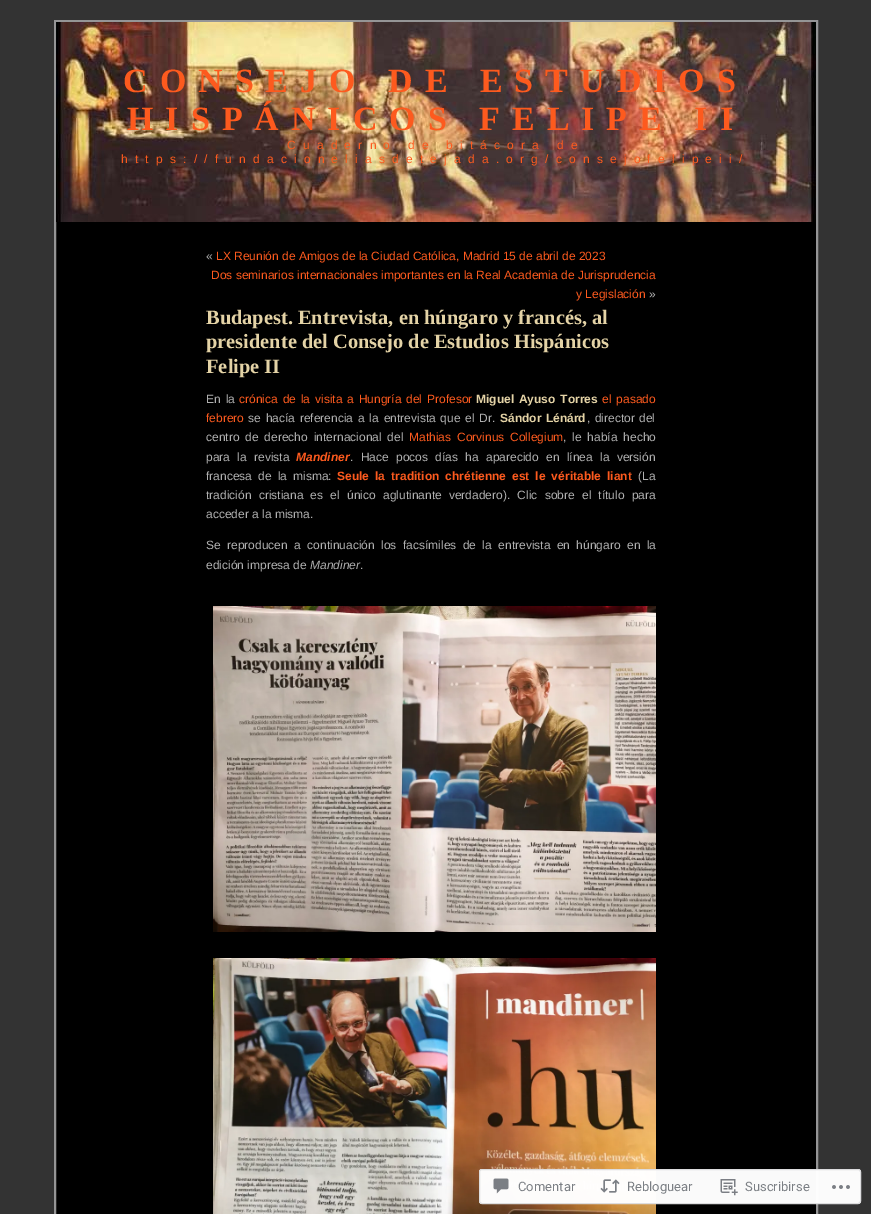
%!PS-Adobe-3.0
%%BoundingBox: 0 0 871 1214
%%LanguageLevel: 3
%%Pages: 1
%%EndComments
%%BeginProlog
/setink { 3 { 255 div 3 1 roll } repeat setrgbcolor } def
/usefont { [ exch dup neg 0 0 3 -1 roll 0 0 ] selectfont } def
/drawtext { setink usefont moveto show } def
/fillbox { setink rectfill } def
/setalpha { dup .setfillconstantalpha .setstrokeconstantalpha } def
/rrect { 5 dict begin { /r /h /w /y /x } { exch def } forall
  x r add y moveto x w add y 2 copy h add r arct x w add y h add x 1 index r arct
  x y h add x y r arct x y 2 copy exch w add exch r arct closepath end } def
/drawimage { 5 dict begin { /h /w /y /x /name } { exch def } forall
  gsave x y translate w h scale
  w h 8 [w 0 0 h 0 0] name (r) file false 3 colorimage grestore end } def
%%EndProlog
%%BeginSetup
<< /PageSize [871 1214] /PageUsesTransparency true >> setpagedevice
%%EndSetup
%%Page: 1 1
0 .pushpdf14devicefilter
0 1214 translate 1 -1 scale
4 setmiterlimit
0 0 871 1214 51 51 51 fillbox
56 222 760 992 0 0 0 fillbox
149 149 150 setink
2 setlinewidth
55 21 762 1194 rectstroke
(assets/img1.rgb) 56 22 760 200 drawimage
/LiberationSerif-Bold 34 usefont
253 90 30 setink
123 92 moveto 12 0 (CONSEJO DE ESTUDIOS) ashow
127 130 moveto 12 0 (HISPÁNICOS FELIPE II) ashow
/LiberationSans-Regular 12 usefont
287 149 moveto 7.2 0 (Cuaderno de bitácora de) ashow
121 163 moveto 7.2 0 (https://fundacioneliasdetejada.org/consejofelipeii/) ashow
(«) 206 260 /LiberationSans-Regular 12 176 176 176 drawtext
(LX Reunión de Amigos de la Ciudad Católica, Madrid 15 de abril de 2023) 216 260 /LiberationSans-Regular 12 253 90 30 drawtext
(Dos seminarios internacionales importantes en la Real Academia de Jurisprudencia) 211 279 /LiberationSans-Regular 12 253 90 30 drawtext
(y Legislación) 576 298 /LiberationSans-Regular 12 253 90 30 drawtext
(») 649 298 /LiberationSans-Regular 12 176 176 176 drawtext
(Budapest. Entrevista, en húngaro y francés, al) 206 324 /LiberationSerif-Bold 20.4 228 211 166 drawtext
gsave
206 227 450 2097 rectclip
(presidente del Consejo de Estudios Hispánicos) 206 348 /LiberationSerif-Bold 20.4 228 211 166 drawtext
grestore
(Felipe II) 206 373 /LiberationSerif-Bold 20.4 228 211 166 drawtext
/LiberationSans-Regular 12 usefont
176 176 176 setink
206 403 moveto 1.5 0 32 (En la) widthshow
253 90 30 setink
239 403 moveto 1.5 0 32 (crónica de la visita a Hungría del Profesor) widthshow
/LiberationSans-Bold 12 usefont
228 211 166 setink
476 403 moveto 1.5 0 32 (Miguel Ayuso Torres) widthshow
/LiberationSans-Regular 12 usefont
253 90 30 setink
602 403 moveto 1.5 0 32 (el pasado) widthshow
(febrero) 206 422 /LiberationSans-Regular 12 253 90 30 drawtext
176 176 176 setink
248 422 moveto 1.5 0 32 (se hacía referencia a la entrevista que el Dr.) widthshow
/LiberationSans-Bold 12 usefont
228 211 166 setink
500 422 moveto 1 0 32 (Sándor Lénárd) widthshow
/LiberationSans-Regular 12 usefont
176 176 176 setink
587 422 moveto 1 0 32 (, director del) widthshow
206 441 moveto 2.5 0 32 (centro de derecho internacional del) widthshow
253 90 30 setink
409 441 moveto 2.5 0 32 (Mathias Corvinus Collegium) widthshow
176 176 176 setink
563 441 moveto 2.5 0 32 (, le había hecho) widthshow
206 461 moveto 4 0 32 (para la revista) widthshow
(Mandiner) 296 461 /LiberationSans-BoldItalic 12 253 90 30 drawtext
/LiberationSans-Regular 12 usefont
176 176 176 setink
350 461 moveto 4 0 32 (. Hace pocos días ha aparecido en línea la versión) widthshow
206 480 moveto 2.75 0 32 (francesa de la misma:) widthshow
/LiberationSans-Bold 12 usefont
253 90 30 setink
337 480 moveto 2.75 0 32 (Seule la tradition chrétienne est le véritable liant) widthshow
(\(La) 638 480 /LiberationSans-Regular 12 176 176 176 drawtext
206 499 moveto 3.9 0 32 (tradición cristiana es el único aglutinante verdadero\). Clic sobre el título para) widthshow
(acceder a la misma.) 206 518 /LiberationSans-Regular 12 176 176 176 drawtext
206 549 moveto 3.1 0 32 (Se reproducen a continuación los facsímiles de la entrevista en húngaro en la) widthshow
(edición impresa de) 206 569 /LiberationSans-Regular 12 176 176 176 drawtext
(Mandiner) 310 569 /LiberationSans-Italic 12 176 176 176 drawtext
(.) 360 569 /LiberationSans-Regular 12 176 176 176 drawtext
(assets/img2.rgb) 213 606 443 326 drawimage
(assets/img3.rgb) 213 958 443 256 drawimage
0.98 setalpha
255 255 255 setink
479 1169 382 35 3 rrect fill
220 220 222 setink
1 setlinewidth
479.5 1169.5 381 34 2.5 rrect stroke
1 setalpha
(assets/img4.rgb) 493 1178 16 16 drawimage
(Comentar) 518 1191 /Roboto-Regular 13 123 127 132 drawtext
(assets/img5.rgb) 600 1179 20 14 drawimage
(Rebloguear) 627 1191 /Roboto-Regular 13 123 127 132 drawtext
(assets/img6.rgb) 720 1179 18 17 drawimage
(Suscribirse) 745 1191 /Roboto-Regular 13 123 127 132 drawtext
(assets/img7.rgb) 832 1185 18 4 drawimage
.poppdf14devicefilter showpage
%%EOF
